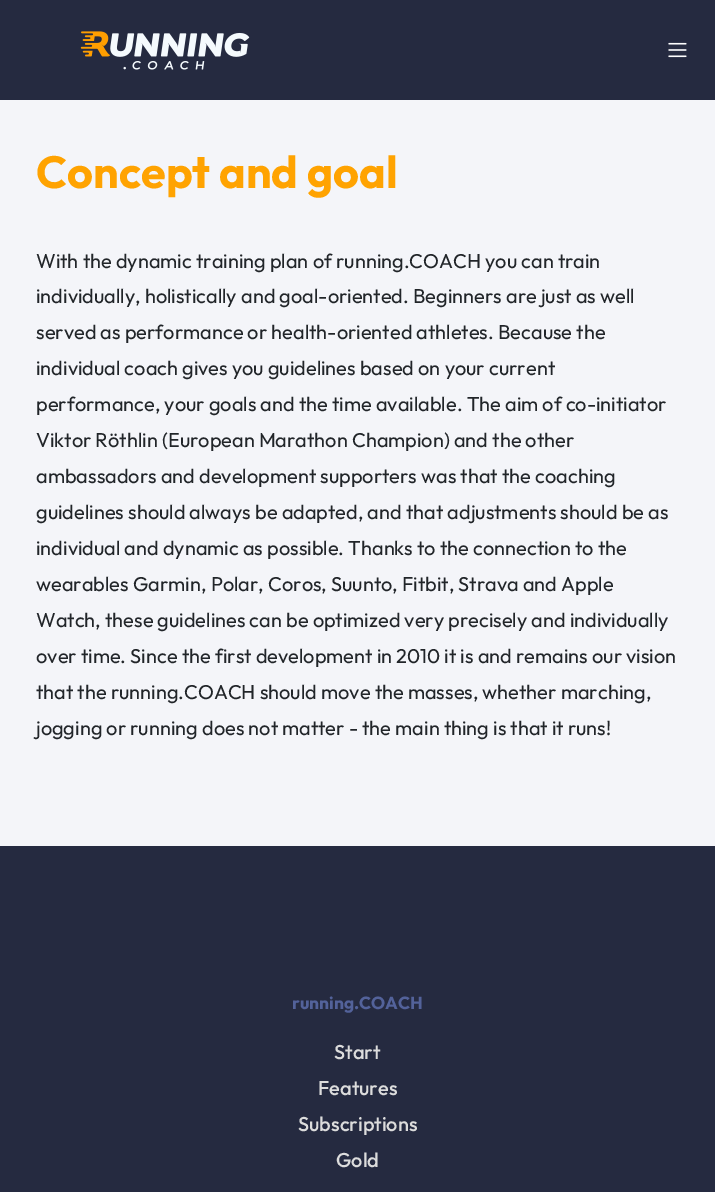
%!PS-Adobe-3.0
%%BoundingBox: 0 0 715 1192
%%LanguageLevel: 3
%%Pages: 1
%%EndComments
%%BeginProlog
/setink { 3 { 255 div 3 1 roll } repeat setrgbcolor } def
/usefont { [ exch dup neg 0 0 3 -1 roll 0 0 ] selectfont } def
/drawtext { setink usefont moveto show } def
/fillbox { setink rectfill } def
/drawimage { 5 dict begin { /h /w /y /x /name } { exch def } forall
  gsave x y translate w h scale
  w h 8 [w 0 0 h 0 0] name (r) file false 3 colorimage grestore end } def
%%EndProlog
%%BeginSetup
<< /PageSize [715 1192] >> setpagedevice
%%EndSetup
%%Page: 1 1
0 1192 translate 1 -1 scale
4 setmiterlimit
0 0 715 1192 244 245 249 fillbox
0 0 715 100 37 42 64 fillbox
(assets/img1.rgb) 80 31 170 39 drawimage
(assets/img2.rgb) 668 42 19 16 drawimage
(Concept and goal) 36 188 /Outfit-Bold 45 255 163 1 drawtext
(With the dynamic training plan of running.COACH you can train) 36 268 /Outfit-Regular 20 33 37 41 drawtext
(individually, holistically and goal-oriented. Beginners are just as well) 36 303 /Outfit-Regular 20 33 37 41 drawtext
(served as performance or health-oriented athletes. Because the) 36 339 /Outfit-Regular 20 33 37 41 drawtext
(individual coach gives you guidelines based on your current) 36 375 /Outfit-Regular 20 33 37 41 drawtext
(performance, your goals and the time available. The aim of co-initiator) 36 411 /Outfit-Regular 20 33 37 41 drawtext
(Viktor Röthlin \(European Marathon Champion\) and the other) 36 447 /Outfit-Regular 20 33 37 41 drawtext
(ambassadors and development supporters was that the coaching) 36 483 /Outfit-Regular 20 33 37 41 drawtext
(guidelines should always be adapted, and that adjustments should be as) 36 519 /Outfit-Regular 20 33 37 41 drawtext
(individual and dynamic as possible. Thanks to the connection to the) 36 555 /Outfit-Regular 20 33 37 41 drawtext
(wearables Garmin, Polar, Coros, Suunto, Fitbit, Strava and Apple) 36 591 /Outfit-Regular 20 33 37 41 drawtext
(Watch, these guidelines can be optimized very precisely and individually) 36 627 /Outfit-Regular 20 33 37 41 drawtext
(over time. Since the first development in 2010 it is and remains our vision) 36 663 /Outfit-Regular 20 33 37 41 drawtext
(that the running.COACH should move the masses, whether marching,) 36 699 /Outfit-Regular 20 33 37 41 drawtext
(jogging or running does not matter - the main thing is that it runs!) 36 735 /Outfit-Regular 20 33 37 41 drawtext
0 846 715 346 37 42 64 fillbox
(running.COACH) 292 1009 /Outfit-Bold 17.5 83 98 154 drawtext
(Start) 334 1059 /Outfit-Medium 20 220 220 220 drawtext
(Features) 318 1095 /Outfit-Medium 20 220 220 220 drawtext
(Subscriptions) 298 1131 /Outfit-Medium 20 220 220 220 drawtext
(Gold) 336 1167 /Outfit-Medium 20 220 220 220 drawtext
showpage
%%EOF
